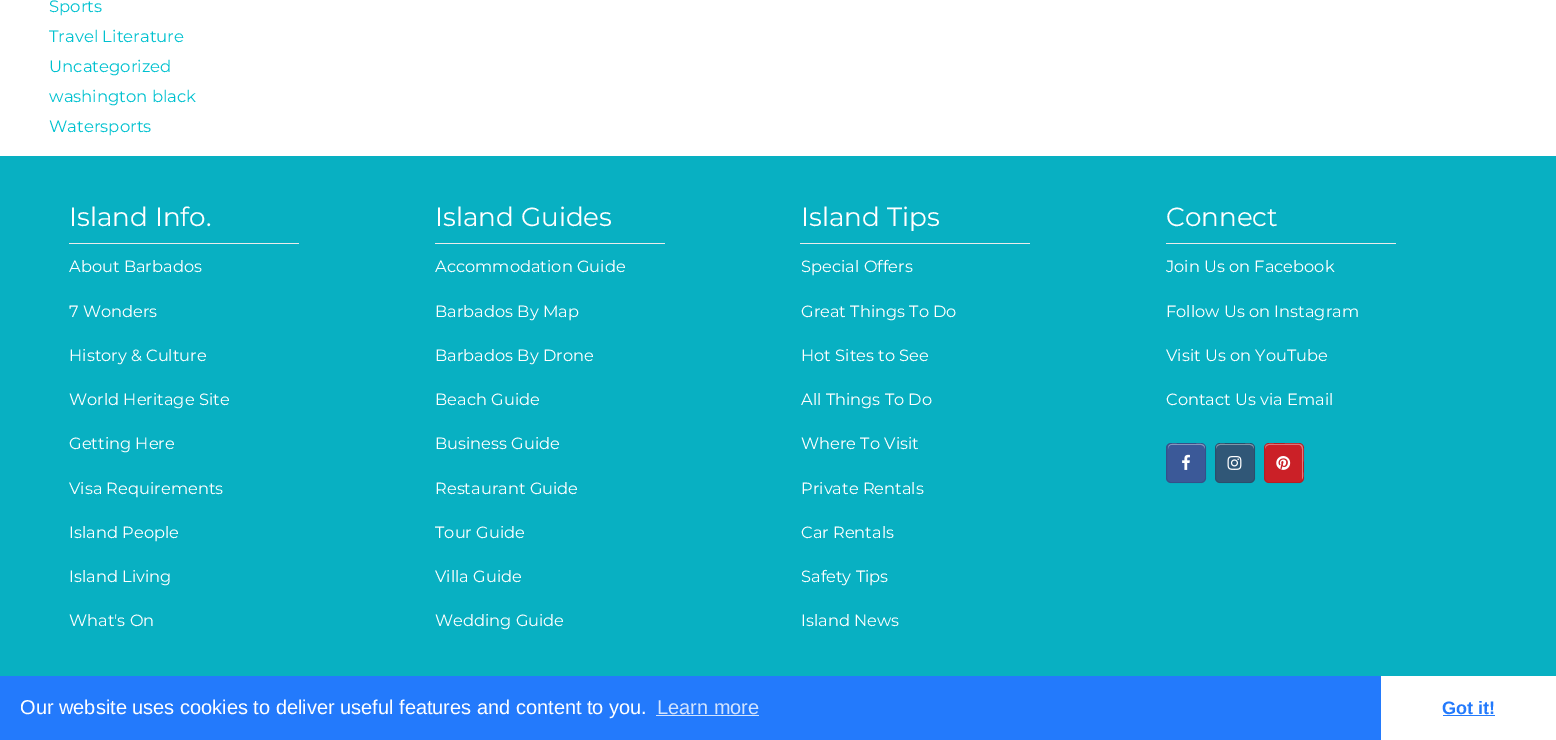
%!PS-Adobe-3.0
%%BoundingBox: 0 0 1556 740
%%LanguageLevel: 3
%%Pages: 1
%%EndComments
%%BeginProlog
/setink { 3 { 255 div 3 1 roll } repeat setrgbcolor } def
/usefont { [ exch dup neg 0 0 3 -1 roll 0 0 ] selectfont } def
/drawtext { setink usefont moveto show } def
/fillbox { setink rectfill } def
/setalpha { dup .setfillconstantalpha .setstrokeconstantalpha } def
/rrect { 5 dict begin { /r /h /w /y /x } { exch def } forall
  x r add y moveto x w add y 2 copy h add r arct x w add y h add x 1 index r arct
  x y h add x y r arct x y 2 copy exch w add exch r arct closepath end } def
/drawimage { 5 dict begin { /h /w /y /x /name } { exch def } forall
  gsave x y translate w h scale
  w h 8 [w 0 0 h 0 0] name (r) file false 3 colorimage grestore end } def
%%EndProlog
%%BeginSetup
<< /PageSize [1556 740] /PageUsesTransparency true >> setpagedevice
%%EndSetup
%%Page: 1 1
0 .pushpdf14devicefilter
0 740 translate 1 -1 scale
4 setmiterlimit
0 0 1556 740 255 255 255 fillbox
(Sports) 49 12 /Montserrat-Regular 16.5 0 193 207 drawtext
(Travel Literature) 49 42 /Montserrat-Regular 16.5 0 193 207 drawtext
(Uncategorized) 49 72 /Montserrat-Regular 16.5 0 193 207 drawtext
(washington black) 49 102 /Montserrat-Regular 16.5 0 193 207 drawtext
(Watersports) 49 132 /Montserrat-Regular 16.5 0 193 207 drawtext
0 156 1556 520 8 176 194 fillbox
(Island Info.) 69 226 /Montserrat-Regular 26.25 255 255 255 drawtext
69 243 230 1 235 235 235 fillbox
(About Barbados) 69 272 /Montserrat-Regular 16.25 255 255 255 drawtext
(7 Wonders) 69 317 /Montserrat-Regular 16.25 255 255 255 drawtext
(History & Culture) 69 361 /Montserrat-Regular 16.25 255 255 255 drawtext
(World Heritage Site) 69 405 /Montserrat-Regular 16.25 255 255 255 drawtext
(Getting Here) 69 449 /Montserrat-Regular 16.25 255 255 255 drawtext
(Visa Requirements) 69 494 /Montserrat-Regular 16.25 255 255 255 drawtext
(Island People) 69 538 /Montserrat-Regular 16.25 255 255 255 drawtext
(Island Living) 69 582 /Montserrat-Regular 16.25 255 255 255 drawtext
(What's On) 69 626 /Montserrat-Regular 16.25 255 255 255 drawtext
(Island Guides) 435 226 /Montserrat-Regular 26.25 255 255 255 drawtext
435 243 230 1 235 235 235 fillbox
(Accommodation Guide) 435 272 /Montserrat-Regular 16.25 255 255 255 drawtext
(Barbados By Map) 435 317 /Montserrat-Regular 16.25 255 255 255 drawtext
(Barbados By Drone) 435 361 /Montserrat-Regular 16.25 255 255 255 drawtext
(Beach Guide) 435 405 /Montserrat-Regular 16.25 255 255 255 drawtext
(Business Guide) 435 449 /Montserrat-Regular 16.25 255 255 255 drawtext
(Restaurant Guide) 435 494 /Montserrat-Regular 16.25 255 255 255 drawtext
(Tour Guide) 435 538 /Montserrat-Regular 16.25 255 255 255 drawtext
(Villa Guide) 435 582 /Montserrat-Regular 16.25 255 255 255 drawtext
(Wedding Guide) 435 626 /Montserrat-Regular 16.25 255 255 255 drawtext
(Island Tips) 801 226 /Montserrat-Regular 26.25 255 255 255 drawtext
800 243 230 1 235 235 235 fillbox
(Special Offers) 801 272 /Montserrat-Regular 16.25 255 255 255 drawtext
(Great Things To Do) 801 317 /Montserrat-Regular 16.25 255 255 255 drawtext
(Hot Sites to See) 801 361 /Montserrat-Regular 16.25 255 255 255 drawtext
(All Things To Do) 801 405 /Montserrat-Regular 16.25 255 255 255 drawtext
(Where To Visit) 801 449 /Montserrat-Regular 16.25 255 255 255 drawtext
(Private Rentals) 801 494 /Montserrat-Regular 16.25 255 255 255 drawtext
(Car Rentals) 801 538 /Montserrat-Regular 16.25 255 255 255 drawtext
(Safety Tips) 801 582 /Montserrat-Regular 16.25 255 255 255 drawtext
(Island News) 801 626 /Montserrat-Regular 16.25 255 255 255 drawtext
(Connect) 1166 226 /Montserrat-Regular 26.25 255 255 255 drawtext
1166 243 230 1 235 235 235 fillbox
(Join Us on Facebook) 1166 272 /Montserrat-Regular 16.25 255 255 255 drawtext
(Follow Us on Instagram) 1166 317 /Montserrat-Regular 16.25 255 255 255 drawtext
(Visit Us on YouTube) 1166 361 /Montserrat-Regular 16.25 255 255 255 drawtext
(Contact Us via Email) 1166 405 /Montserrat-Regular 16.25 255 255 255 drawtext
59 89 152 setink
1166 443 40 40 5 rrect fill
137 155 193 setink
1171 445 moveto 1201 445 lineto 1203 445 1205 447 1205 449 curveto 1205 443 1201 444 1196 444 curveto 1177 444 lineto 1172 444 1168 443 1168 449 curveto 1168 447 1169 445 1171 445 curveto closepath fill
0.1 setalpha
0 0 0 setink
1166.5 443.5 39 39 4.5 rrect stroke
1 setalpha
(assets/img1.rgb) 1182 454 8 16 drawimage
48 87 119 setink
1215 443 40 40 5 rrect fill
131 154 173 setink
1220 445 moveto 1250 445 lineto 1252 445 1254 447 1254 449 curveto 1254 443 1249.5 444 1245 444 curveto 1225 444 lineto 1220.5 444 1216 443 1216 449 curveto 1216 447 1218 445 1220 445 curveto closepath fill
0.1 setalpha
0 0 0 setink
1215.5 443.5 39 39 4.5 rrect stroke
1 setalpha
(assets/img2.rgb) 1227 456 15 14 drawimage
203 32 39 setink
1264 443 40 40 5 rrect fill
224 121 125 setink
1269 445 moveto 1299.5 445 lineto 1303 446 1302 452 1302 454 curveto 1302 479.5 lineto 1303.5 478 1303 474.5 1303 472 curveto 1303 462.5 lineto 1303 440.5 1306 444 1284 444 curveto 1274 444 lineto 1269.5 444 1265 443 1265 449 curveto 1265 447 1267 445 1269 445 curveto closepath fill
0.1 setalpha
0 0 0 setink
1264.5 443.5 39 39 4.5 rrect stroke
1 setalpha
(assets/img3.rgb) 1276 456 15 14 drawimage
0 676 1381 64 35 122 252 fillbox
(Our website uses cookies to deliver useful features and content to you.) 20 714 /LiberationSans-Regular 20 255 255 255 drawtext
(Learn more) 657 714 /LiberationSans-Regular 20 211 228 254 drawtext
656 715 103 1 211 228 254 fillbox
(Got it!) 1442 714 /LiberationSans-Bold 18 35 122 252 drawtext
1443 715 52 1 35 122 252 fillbox
.poppdf14devicefilter showpage
%%EOF
